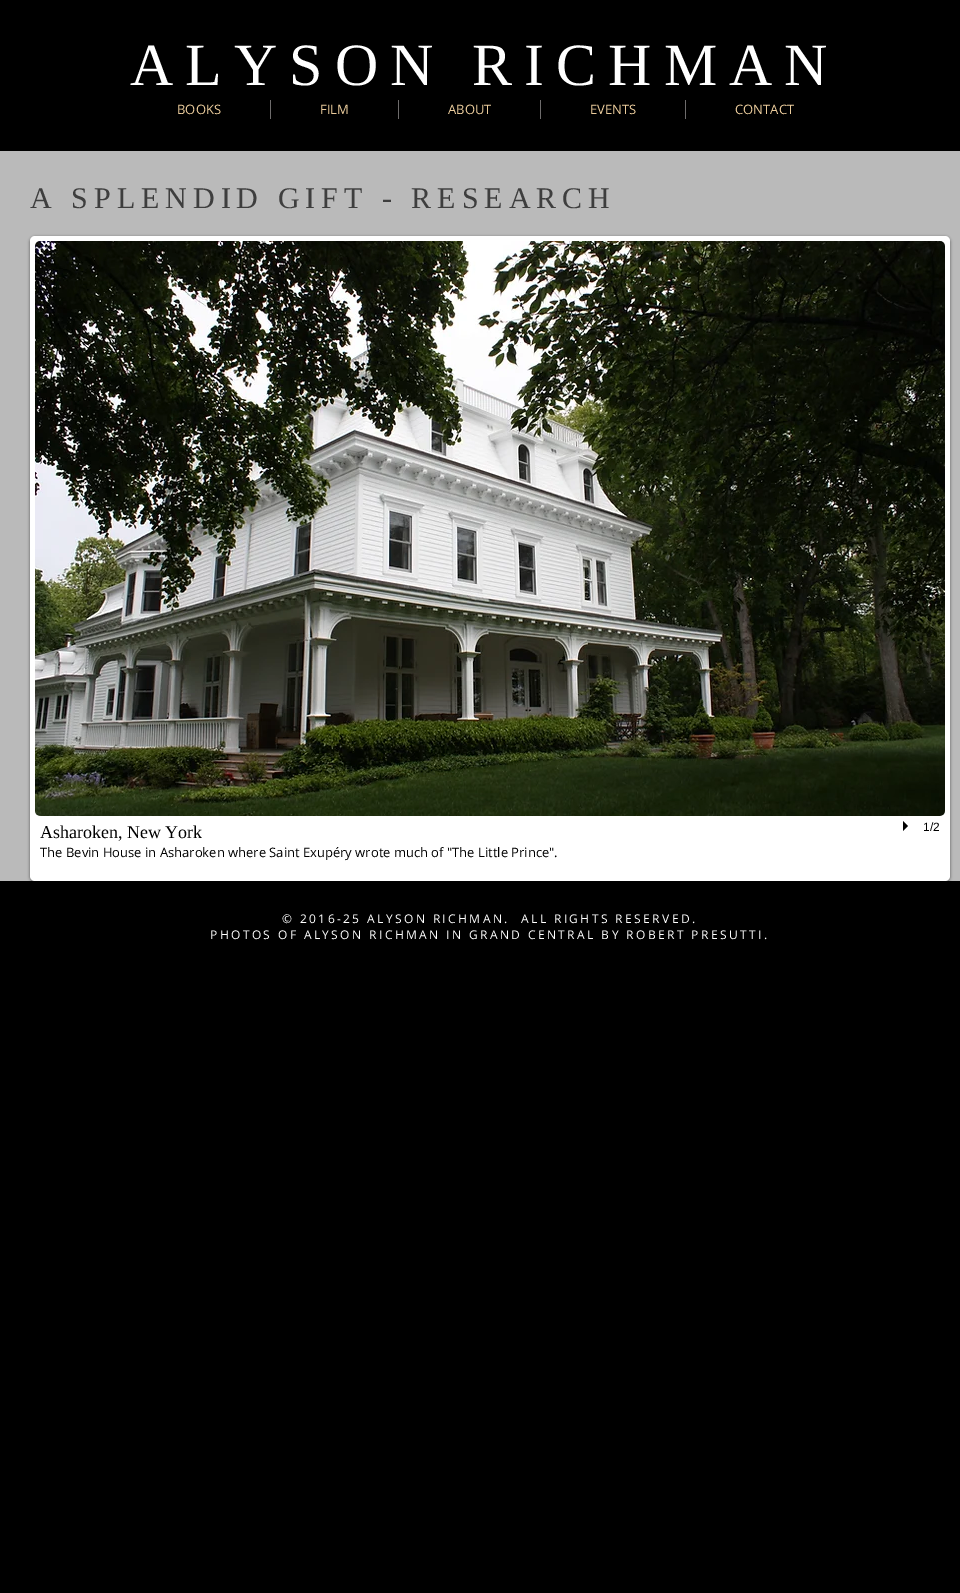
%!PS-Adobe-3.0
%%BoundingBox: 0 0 960 1593
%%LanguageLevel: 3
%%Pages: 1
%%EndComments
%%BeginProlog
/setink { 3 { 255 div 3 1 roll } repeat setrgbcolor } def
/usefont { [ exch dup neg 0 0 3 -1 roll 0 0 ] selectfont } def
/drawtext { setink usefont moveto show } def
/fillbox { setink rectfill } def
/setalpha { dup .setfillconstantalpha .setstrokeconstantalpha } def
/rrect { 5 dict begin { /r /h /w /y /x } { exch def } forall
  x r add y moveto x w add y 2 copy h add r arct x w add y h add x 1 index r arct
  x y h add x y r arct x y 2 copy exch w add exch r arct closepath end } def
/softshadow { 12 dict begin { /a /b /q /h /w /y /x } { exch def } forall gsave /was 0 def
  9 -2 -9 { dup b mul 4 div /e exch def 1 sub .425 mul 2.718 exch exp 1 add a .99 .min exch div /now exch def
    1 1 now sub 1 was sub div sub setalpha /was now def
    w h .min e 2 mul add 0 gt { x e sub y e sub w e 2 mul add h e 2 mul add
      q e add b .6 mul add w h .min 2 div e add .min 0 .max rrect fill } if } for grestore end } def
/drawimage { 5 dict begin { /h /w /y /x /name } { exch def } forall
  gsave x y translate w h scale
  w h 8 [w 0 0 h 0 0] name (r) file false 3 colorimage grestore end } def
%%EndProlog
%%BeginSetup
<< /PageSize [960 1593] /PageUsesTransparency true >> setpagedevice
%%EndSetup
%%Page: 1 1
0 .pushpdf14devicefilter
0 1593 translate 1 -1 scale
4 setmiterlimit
0 0 960 1593 0 0 0 fillbox
/LiberationSerif-Regular 60 usefont
255 255 255 setink
130 85 moveto 12 0 (ALYSON RICHMAN) ashow
(BOOKS) 177 114 /OpenSans-Regular 13 235 204 156 drawtext
270 100 1 19 110 108 108 fillbox
(FILM) 320 114 /OpenSans-Regular 13 235 204 156 drawtext
398 100 1 19 110 108 108 fillbox
(ABOUT) 448 114 /OpenSans-Regular 13 235 204 156 drawtext
540 100 1 19 110 108 108 fillbox
(EVENTS) 590 114 /OpenSans-Regular 13 235 204 156 drawtext
685 100 1 19 110 108 108 fillbox
(CONTACT) 735 114 /OpenSans-Regular 13 235 204 156 drawtext
0 151 960 730 186 186 186 fillbox
/LiberationSerif-Regular 30 usefont
62 62 62 setink
30 208 moveto 6 0 (A SPLENDID GIFT - RESEARCH) ashow
0 0 0 setink
30 237 920 645 5 1.5 0.5 softshadow
255 255 255 setink
30 236 920 645 5 rrect fill
(assets/img1.rgb) 35 241 910 575 drawimage
(Asharoken, New York) 40 838 /LiberationSerif-Regular 18 0 0 0 drawtext
(The Bevin House in Asharoken where Saint Exupéry wrote much of "The Little Prince".) 40 857 /OpenSans-Regular 13 0 0 0 drawtext
903 831 moveto 903 821 lineto 908 826 lineto closepath fill
(1/2) 923 831 /LiberationSans-Regular 12 0 0 0 drawtext
/OpenSans-Regular 12 usefont
255 255 255 setink
282 923 moveto 2.4 0 (© 2016-25 ALYSON RICHMAN.) ashow
521 923 moveto 2.4 0 (ALL RIGHTS RESERVED.) ashow
210 939 moveto 2.4 0 (PHOTOS OF ALYSON RICHMAN IN GRAND CENTRAL BY ROBERT PRESUTTI.) ashow
.poppdf14devicefilter showpage
%%EOF
